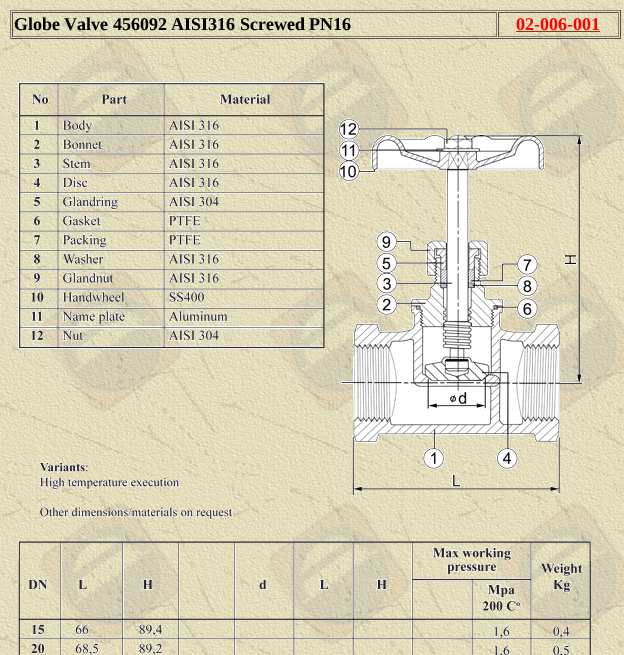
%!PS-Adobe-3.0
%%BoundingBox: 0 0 624 655
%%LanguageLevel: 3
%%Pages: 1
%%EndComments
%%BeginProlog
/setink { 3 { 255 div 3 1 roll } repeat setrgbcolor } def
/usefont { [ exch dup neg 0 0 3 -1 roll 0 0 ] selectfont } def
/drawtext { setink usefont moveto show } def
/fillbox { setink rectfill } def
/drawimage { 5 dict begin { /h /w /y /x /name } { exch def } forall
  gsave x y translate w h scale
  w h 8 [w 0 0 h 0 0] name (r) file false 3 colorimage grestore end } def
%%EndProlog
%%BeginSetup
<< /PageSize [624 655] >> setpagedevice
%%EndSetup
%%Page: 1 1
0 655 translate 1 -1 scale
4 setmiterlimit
0 0 624 655 255 255 255 fillbox
(assets/img1.rgb) 0 0 624 655 drawimage
10 10 611 1 128 128 128 fillbox
620 10 1 29 85 85 85 fillbox
10 38 611 1 85 85 85 fillbox
10 10 1 29 128 128 128 fillbox
12 12 485 1 85 85 85 fillbox
496 12 1 25 128 128 128 fillbox
12 36 485 1 128 128 128 fillbox
12 12 1 25 85 85 85 fillbox
(Globe Valve 456092 AISI316 Screwed PN16) 14 30 /LiberationSerif-Bold 18 0 0 0 drawtext
498 12 121 1 85 85 85 fillbox
618 12 1 25 128 128 128 fillbox
498 36 121 1 128 128 128 fillbox
498 12 1 25 85 85 85 fillbox
(02-006-001) 516 30 /LiberationSerif-Bold 18 255 0 0 drawtext
516 31 84 1 153 51 0 fillbox
(assets/img2.rgb) 18 82 574 573 drawimage
showpage
%%EOF
